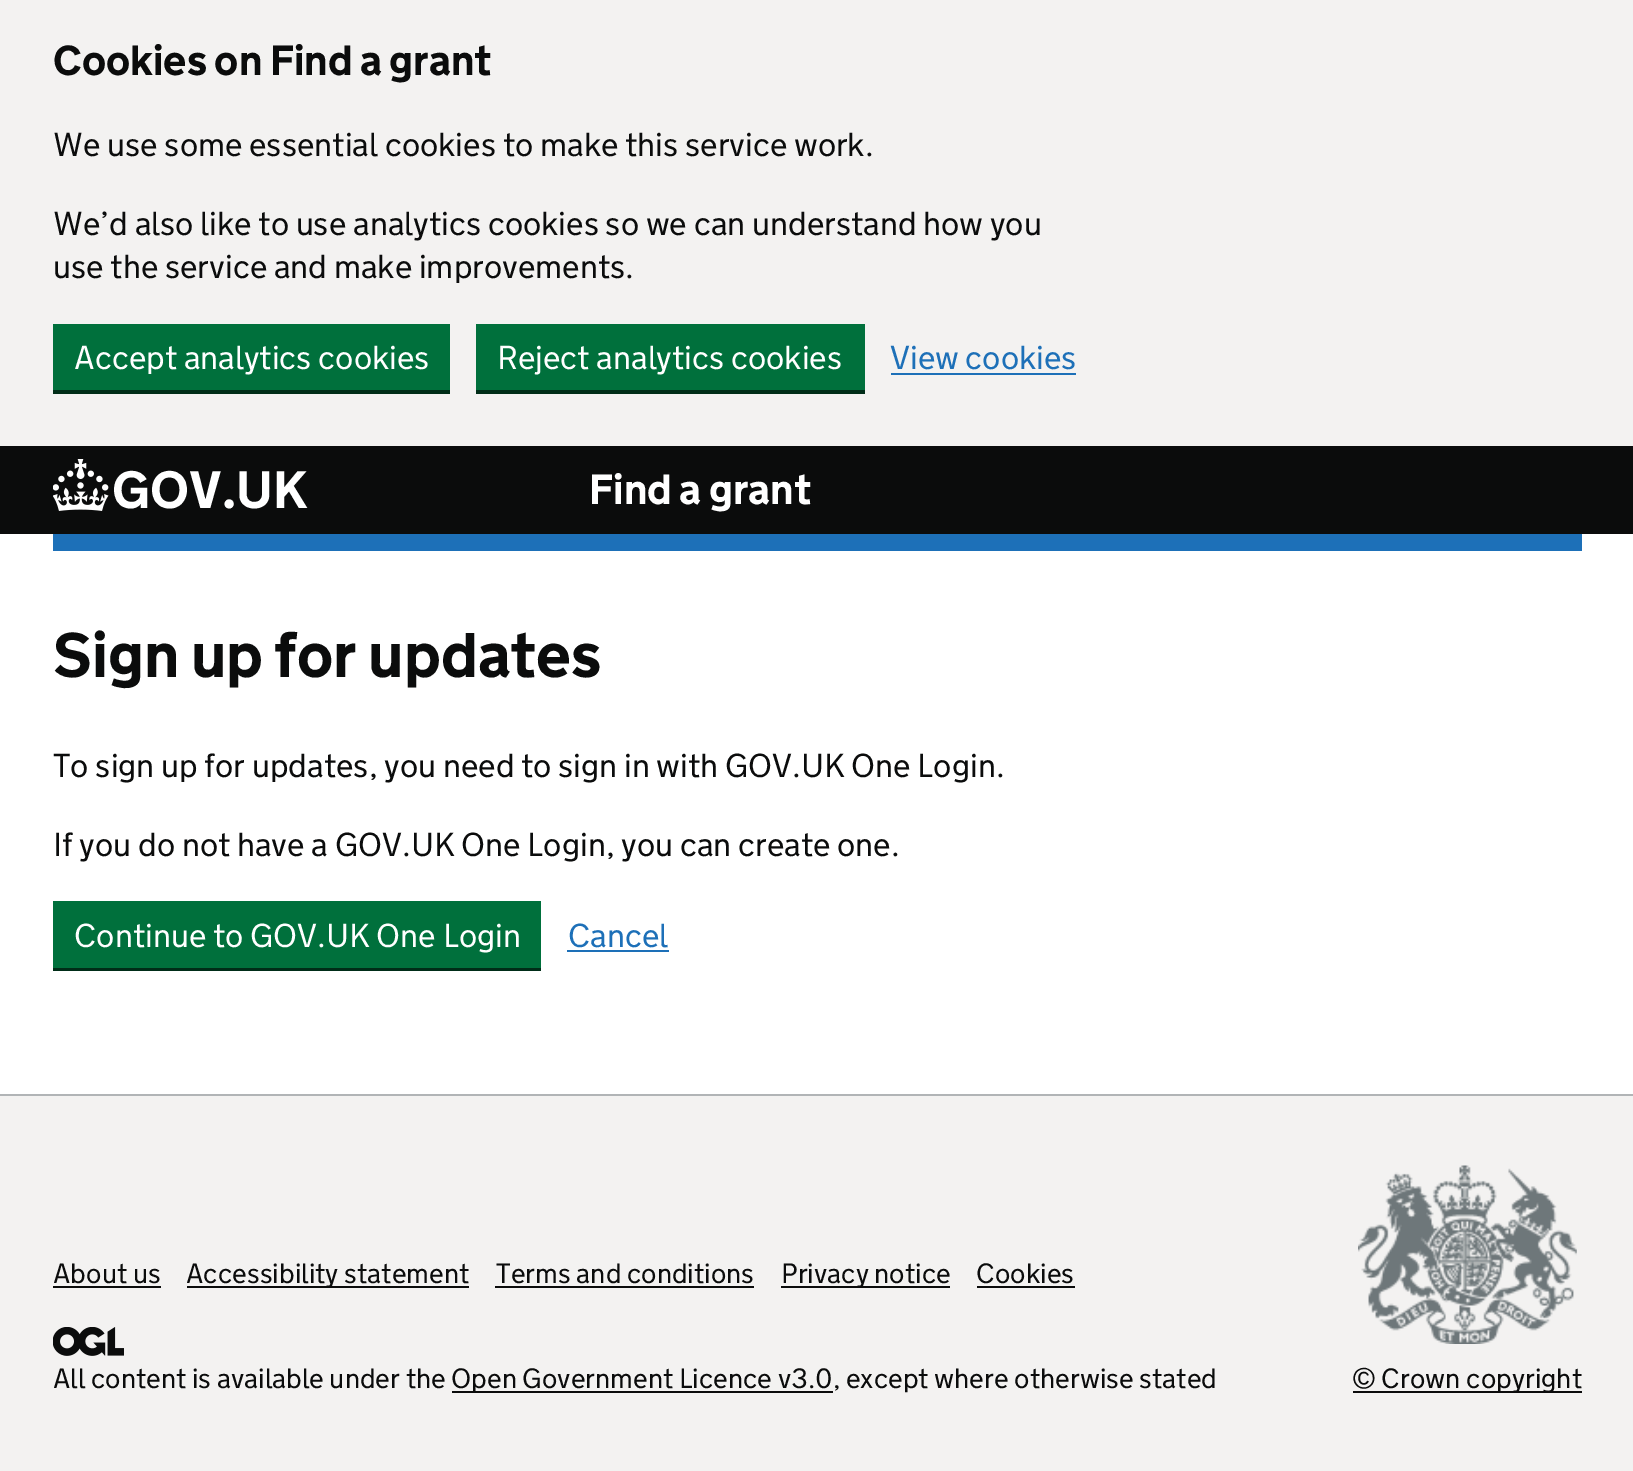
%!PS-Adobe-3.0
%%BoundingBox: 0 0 1633 1471
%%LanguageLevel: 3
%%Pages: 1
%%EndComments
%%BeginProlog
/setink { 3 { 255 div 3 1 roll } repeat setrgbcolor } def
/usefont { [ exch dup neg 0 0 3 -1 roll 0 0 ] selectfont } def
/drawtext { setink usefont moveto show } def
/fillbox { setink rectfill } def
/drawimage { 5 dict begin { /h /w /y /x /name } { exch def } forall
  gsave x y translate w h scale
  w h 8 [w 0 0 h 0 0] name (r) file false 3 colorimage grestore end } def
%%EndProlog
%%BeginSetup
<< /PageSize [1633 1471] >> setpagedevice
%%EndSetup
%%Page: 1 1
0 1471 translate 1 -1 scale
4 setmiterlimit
0 0 1633 1471 255 255 255 fillbox
0 0 1633 446 243 242 241 fillbox
(Cookies on Find a grant) 53 75 /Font-Bold 42 11 12 12 drawtext
(We use some essential cookies to make this service work.) 53 156 /Font-Light 33.25 11 12 12 drawtext
(We’d also like to use analytics cookies so we can understand how you) 53 235 /Font-Light 33.25 11 12 12 drawtext
(use the service and make improvements.) 53 278 /Font-Light 33.25 11 12 12 drawtext
0 45 24 setink
53 390 moveto 53 394 lineto 450 394 lineto 450 327 lineto 450 390 lineto closepath fill
53 324 397 66 0 112 60 fillbox
(Accept analytics cookies) 74 369 /Font-Light 33.25 255 255 255 drawtext
0 45 24 setink
476 390 moveto 476 394 lineto 865 394 lineto 865 327 lineto 864 327 lineto 864 390 lineto closepath fill
476 324 389 66 0 112 60 fillbox
(Reject analytics cookies) 497 369 /Font-Light 33.25 255 255 255 drawtext
(View cookies) 890 369 /Font-Light 33.25 29 112 184 drawtext
891 373 185 2 29 112 184 fillbox
0 446 1633 88 11 12 12 fillbox
53 534 1529 17 29 112 184 fillbox
(assets/img1.rgb) 53 459 56 52 drawimage
(GOV.UK) 112 508 /Font-Bold 52.5 255 255 255 drawtext
(Find a grant) 589 504 /Font-Bold 42 255 255 255 drawtext
(Sign up for updates) 53 677 /Font-Bold 63 11 12 12 drawtext
(To sign up for updates, you need to sign in with GOV.UK One Login.) 53 777 /Font-Light 33.25 11 12 12 drawtext
(If you do not have a GOV.UK One Login, you can create one.) 53 856 /Font-Light 33.25 11 12 12 drawtext
0 45 24 setink
53 968 moveto 53 971 lineto 541 971 lineto 541 905 lineto 541 968 lineto closepath fill
53 901 488 67 0 112 60 fillbox
(Continue to GOV.UK One Login) 74 947 /Font-Light 33.25 255 255 255 drawtext
(Cancel) 568 947 /Font-Light 33.25 29 112 184 drawtext
567 950 102 2 29 112 184 fillbox
0 1096 1633 375 243 242 241 fillbox
0 1094 1633 2 177 180 182 fillbox
(About us) 53 1283 /Font-Light 28 11 12 12 drawtext
53 1286 108 2 11 12 12 fillbox
187 1286 282 2 11 12 12 fillbox
(Accessibility statement) 186 1283 /Font-Light 28 11 12 12 drawtext
(Terms and conditions) 496 1283 /Font-Light 28 11 12 12 drawtext
495 1286 259 2 11 12 12 fillbox
781 1286 169 2 11 12 12 fillbox
(Privacy notice) 781 1283 /Font-Light 28 11 12 12 drawtext
(Cookies) 976 1283 /Font-Light 28 11 12 12 drawtext
977 1286 98 2 11 12 12 fillbox
(assets/img2.rgb) 53 1327 71 29 drawimage
(All content is available under the) 53 1388 /Font-Light 28 11 12 12 drawtext
452 1391 381 2 11 12 12 fillbox
(Open Government Licence v3.0, except where otherwise stated) 451 1388 /Font-Light 28 11 12 12 drawtext
(assets/img3.rgb) 1358 1165 219 179 drawimage
1353 1391 229 2 11 12 12 fillbox
(© Crown copyright) 1352 1388 /Font-Light 28 11 12 12 drawtext
showpage
%%EOF
